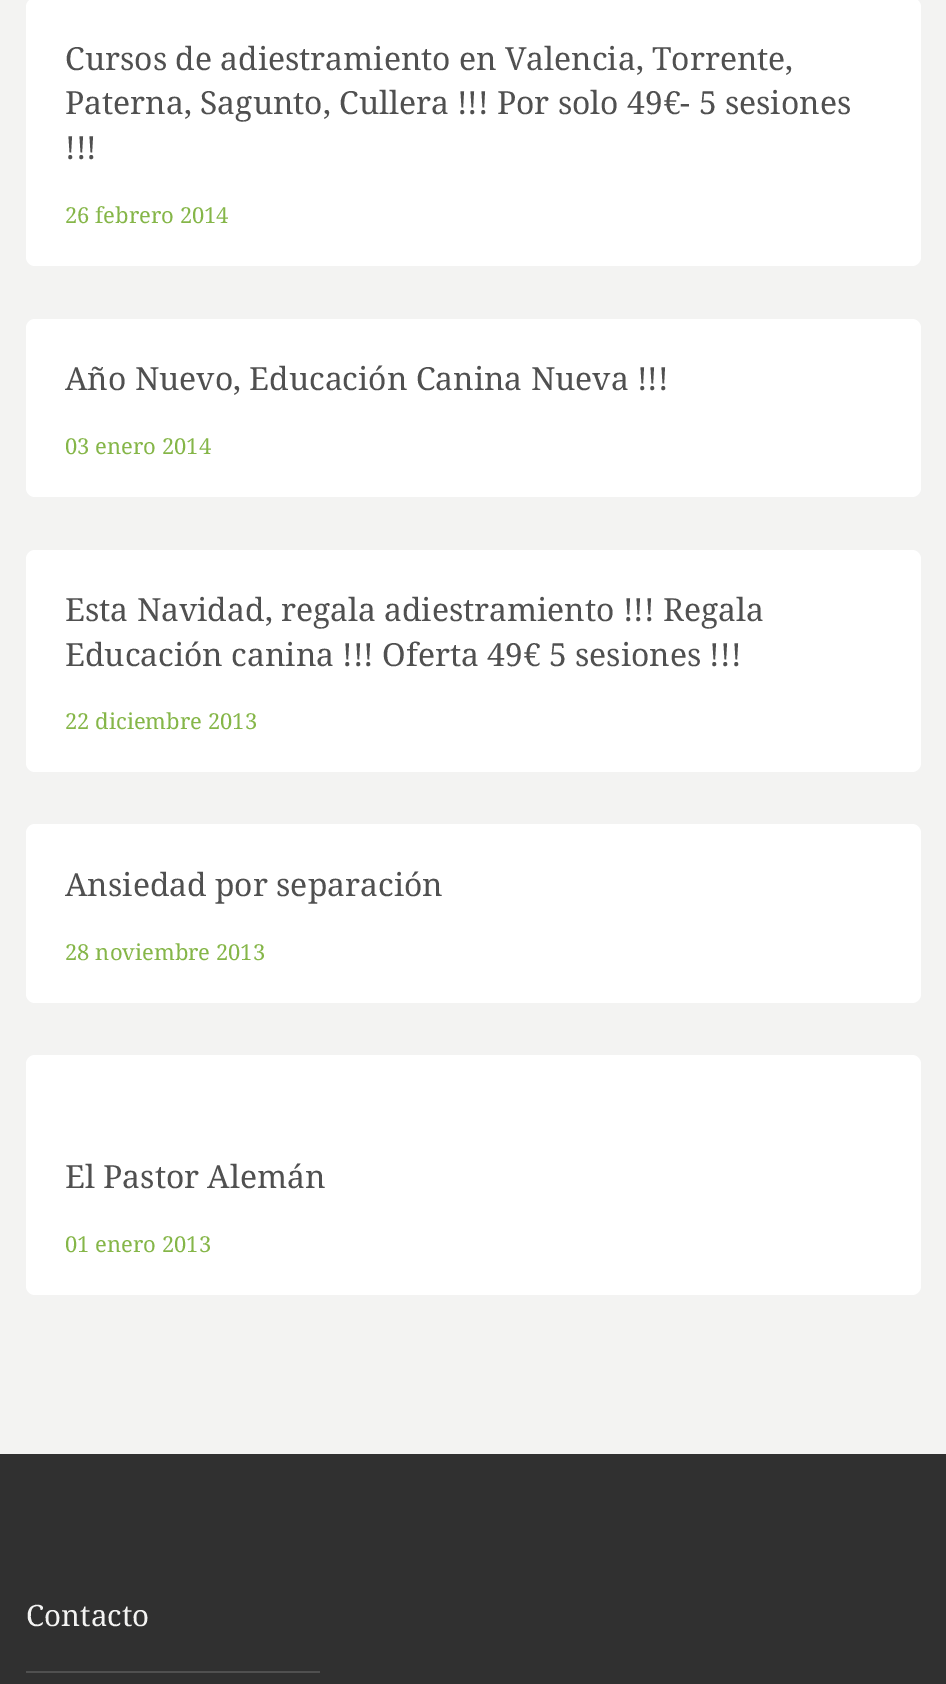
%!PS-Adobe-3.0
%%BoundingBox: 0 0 946 1684
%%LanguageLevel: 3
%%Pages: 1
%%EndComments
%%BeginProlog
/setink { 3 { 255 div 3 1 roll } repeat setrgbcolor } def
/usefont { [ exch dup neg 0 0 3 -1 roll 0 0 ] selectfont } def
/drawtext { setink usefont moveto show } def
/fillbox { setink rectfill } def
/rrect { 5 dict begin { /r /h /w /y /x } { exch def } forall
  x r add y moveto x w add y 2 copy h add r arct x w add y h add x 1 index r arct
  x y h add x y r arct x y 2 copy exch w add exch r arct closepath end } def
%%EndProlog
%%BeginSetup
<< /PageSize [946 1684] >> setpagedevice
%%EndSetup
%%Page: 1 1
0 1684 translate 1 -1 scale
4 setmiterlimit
0 0 946 1684 243 243 242 fillbox
255 255 255 setink
26 -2 895 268 9 rrect fill
(Cursos de adiestramiento en Valencia, Torrente,) 65 70 /NotoSerif-Regular 31.85 80 80 80 drawtext
(Paterna, Sagunto, Cullera !!! Por solo 49€- 5 sesiones) 65 114 /NotoSerif-Regular 31.85 80 80 80 drawtext
(!!!) 65 159 /NotoSerif-Regular 31.85 80 80 80 drawtext
(26 febrero 2014) 65 223 /NotoSerif-Regular 22 133 182 72 drawtext
255 255 255 setink
26 319 895 178 9 rrect fill
(Año Nuevo, Educación Canina Nueva !!!) 65 390 /NotoSerif-Regular 31.85 80 80 80 drawtext
(03 enero 2014) 65 454 /NotoSerif-Regular 22 133 182 72 drawtext
255 255 255 setink
26 550 895 222 9 rrect fill
(Esta Navidad, regala adiestramiento !!! Regala) 65 621 /NotoSerif-Regular 31.85 80 80 80 drawtext
(Educación canina !!! Oferta 49€ 5 sesiones !!!) 65 666 /NotoSerif-Regular 31.85 80 80 80 drawtext
(22 diciembre 2013) 65 729 /NotoSerif-Regular 22 133 182 72 drawtext
255 255 255 setink
26 824 895 179 9 rrect fill
(Ansiedad por separación) 65 896 /NotoSerif-Regular 31.85 80 80 80 drawtext
(28 noviembre 2013) 65 960 /NotoSerif-Regular 22 133 182 72 drawtext
255 255 255 setink
26 1055 895 240 9 rrect fill
(El Pastor Alemán) 65 1188 /NotoSerif-Regular 31.85 80 80 80 drawtext
(01 enero 2013) 65 1252 /NotoSerif-Regular 22 133 182 72 drawtext
0 1454 946 230 48 48 48 fillbox
(Contacto) 26 1626 /NotoSerif-Regular 29.5 243 243 242 drawtext
26 1671 294 2 80 80 80 fillbox
showpage
%%EOF
